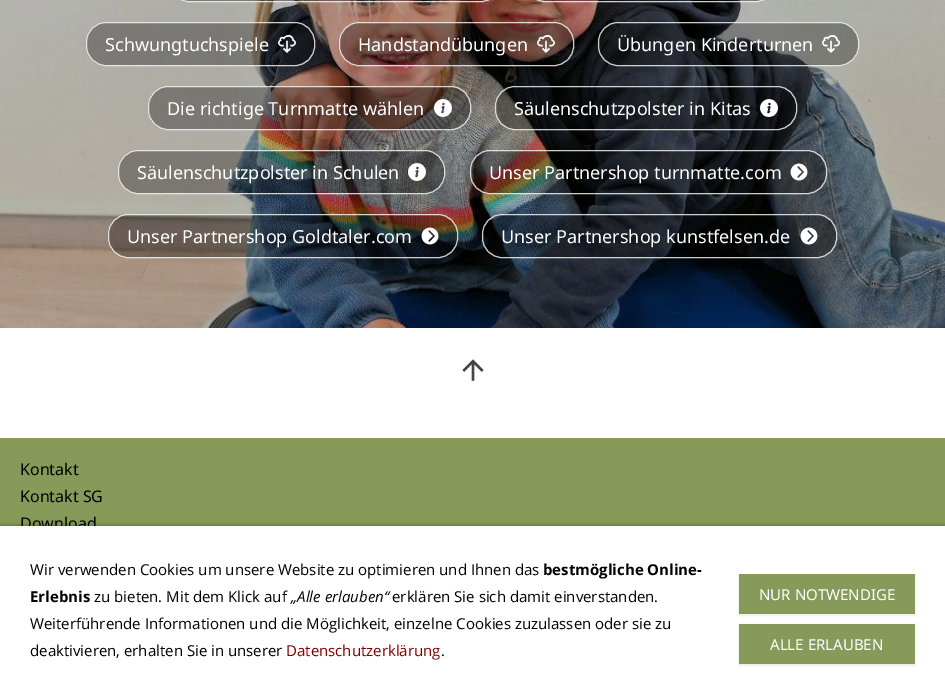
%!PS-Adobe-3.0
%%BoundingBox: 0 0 945 694
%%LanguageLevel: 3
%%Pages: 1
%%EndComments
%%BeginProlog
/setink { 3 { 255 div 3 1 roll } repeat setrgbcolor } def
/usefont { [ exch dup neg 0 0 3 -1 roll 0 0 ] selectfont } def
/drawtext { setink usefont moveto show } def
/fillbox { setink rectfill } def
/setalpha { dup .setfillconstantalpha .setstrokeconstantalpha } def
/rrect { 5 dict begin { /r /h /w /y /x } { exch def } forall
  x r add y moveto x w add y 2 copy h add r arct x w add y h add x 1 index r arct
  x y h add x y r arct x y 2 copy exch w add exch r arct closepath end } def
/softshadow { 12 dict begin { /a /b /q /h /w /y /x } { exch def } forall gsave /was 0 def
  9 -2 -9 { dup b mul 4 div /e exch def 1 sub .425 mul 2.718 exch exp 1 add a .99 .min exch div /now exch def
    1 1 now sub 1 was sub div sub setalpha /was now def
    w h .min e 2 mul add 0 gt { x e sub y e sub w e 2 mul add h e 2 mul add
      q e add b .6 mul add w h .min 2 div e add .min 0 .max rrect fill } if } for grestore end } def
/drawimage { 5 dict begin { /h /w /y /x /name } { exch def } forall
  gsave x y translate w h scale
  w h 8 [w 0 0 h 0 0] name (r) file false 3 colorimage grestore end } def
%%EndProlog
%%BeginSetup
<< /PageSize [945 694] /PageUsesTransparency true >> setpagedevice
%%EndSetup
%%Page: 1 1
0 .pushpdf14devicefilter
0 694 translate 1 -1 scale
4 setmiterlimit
0 0 945 694 136 154 89 fillbox
0 328 945 110 255 255 255 fillbox
(assets/img1.rgb) 0 0 945 328 drawimage
0.3 setalpha
0 0 0 setink
169 -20 332 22 20 rrect fill
0.8 setalpha
255 255 255 setink
169.5 -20.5 331 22 19.5 rrect stroke
0.3 setalpha
0 0 0 setink
525 -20 251 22 20 rrect fill
0.8 setalpha
255 255 255 setink
525.5 -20.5 250 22 19.5 rrect stroke
0.3 setalpha
0 0 0 setink
86 22 229 44 20 rrect fill
0.8 setalpha
255 255 255 setink
86.5 22.5 228 43 19.5 rrect stroke
1 setalpha
(Schwungtuchspiele) 105 51 /NotoSans-Regular 18 255 255 255 drawtext
(assets/img2.rgb) 278 35 18 18 drawimage
0.3 setalpha
0 0 0 setink
339 22 235 44 20 rrect fill
0.8 setalpha
255 255 255 setink
339.5 22.5 234 43 19.5 rrect stroke
1 setalpha
(Handstandübungen) 358 51 /NotoSans-Regular 18 255 255 255 drawtext
(assets/img3.rgb) 537 35 18 18 drawimage
0.3 setalpha
0 0 0 setink
598 22 261 44 20 rrect fill
0.8 setalpha
255 255 255 setink
598.5 22.5 260 43 19.5 rrect stroke
1 setalpha
(Übungen Kinderturnen) 617 51 /NotoSans-Regular 18 255 255 255 drawtext
(assets/img4.rgb) 822 35 18 18 drawimage
0.3 setalpha
0 0 0 setink
148 86 323 44 20 rrect fill
0.8 setalpha
255 255 255 setink
148.5 86.5 322 43 19.5 rrect stroke
1 setalpha
(Die richtige Turnmatte wählen) 167 115 /NotoSans-Regular 18 255 255 255 drawtext
(assets/img5.rgb) 434 99 18 18 drawimage
0.3 setalpha
0 0 0 setink
495 86 302 44 20 rrect fill
0.8 setalpha
255 255 255 setink
495.5 86.5 301 43 19.5 rrect stroke
1 setalpha
(Säulenschutzpolster in Kitas) 514 115 /NotoSans-Regular 18 255 255 255 drawtext
(assets/img6.rgb) 760 99 18 18 drawimage
0.3 setalpha
0 0 0 setink
118 150 327 44 20 rrect fill
0.8 setalpha
255 255 255 setink
118.5 150.5 326 43 19.5 rrect stroke
1 setalpha
(Säulenschutzpolster in Schulen) 137 179 /NotoSans-Regular 18 255 255 255 drawtext
(assets/img7.rgb) 408 163 18 18 drawimage
0.3 setalpha
0 0 0 setink
470 150 357 44 20 rrect fill
0.8 setalpha
255 255 255 setink
470.5 150.5 356 43 19.5 rrect stroke
1 setalpha
(Unser Partnershop turnmatte.com) 489 179 /NotoSans-Regular 18 255 255 255 drawtext
(assets/img8.rgb) 790 163 18 18 drawimage
0.3 setalpha
0 0 0 setink
108 214 350 44 20 rrect fill
0.8 setalpha
255 255 255 setink
108.5 214.5 349 43 19.5 rrect stroke
1 setalpha
(Unser Partnershop Goldtaler.com) 127 243 /NotoSans-Regular 18 255 255 255 drawtext
(assets/img9.rgb) 421 227 18 18 drawimage
0.3 setalpha
0 0 0 setink
482 214 355 44 20 rrect fill
0.8 setalpha
255 255 255 setink
482.5 214.5 354 43 19.5 rrect stroke
1 setalpha
(Unser Partnershop kunstfelsen.de) 501 243 /NotoSans-Regular 18 255 255 255 drawtext
(assets/img10.rgb) 800 227 18 18 drawimage
(assets/img11.rgb) 462 359 22 22 drawimage
(Kontakt) 20 475 /NotoSans-Regular 16 0 0 0 drawtext
(Kontakt SG) 20 502 /NotoSans-Regular 16 0 0 0 drawtext
(Download) 20 529 /NotoSans-Regular 16 0 0 0 drawtext
0 526 945 168 0 2.5 0.4 softshadow
0 526 945 168 255 255 255 fillbox
(Wir verwenden Cookies um unsere Website zu optimieren und Ihnen das) 30 575 /OpenSans-Regular 15 0 0 0 drawtext
(bestmögliche Online-) 543 575 /OpenSans-Bold 15 0 0 0 drawtext
(Erlebnis) 30 602 /OpenSans-Bold 15 0 0 0 drawtext
(zu bieten. Mit dem Klick auf) 94 602 /OpenSans-Regular 15 0 0 0 drawtext
(„Alle erlauben“) 291 602 /OpenSans-Italic 15 0 0 0 drawtext
(erklären Sie sich damit einverstanden.) 392 602 /OpenSans-Regular 15 0 0 0 drawtext
(Weiterführende Informationen und die Möglichkeit, einzelne Cookies zuzulassen oder sie zu) 30 629 /OpenSans-Regular 15 0 0 0 drawtext
(deaktivieren, erhalten Sie in unserer) 30 656 /OpenSans-Regular 15 0 0 0 drawtext
(Datenschutzerklärung) 286 656 /OpenSans-Regular 15 130 0 0 drawtext
(.) 441 656 /OpenSans-Regular 15 0 0 0 drawtext
739 575 176 40 0 1.5 0.1 softshadow
739 574 176 40 136 154 89 fillbox
(NUR NOTWENDIGE) 759 600 /NotoSans-Regular 15 255 255 255 drawtext
0 0 0 setink
739 625 176 40 0 1.5 0.1 softshadow
739 624 176 40 136 154 89 fillbox
(ALLE ERLAUBEN) 770 650 /NotoSans-Regular 15 255 255 255 drawtext
.poppdf14devicefilter showpage
%%EOF
